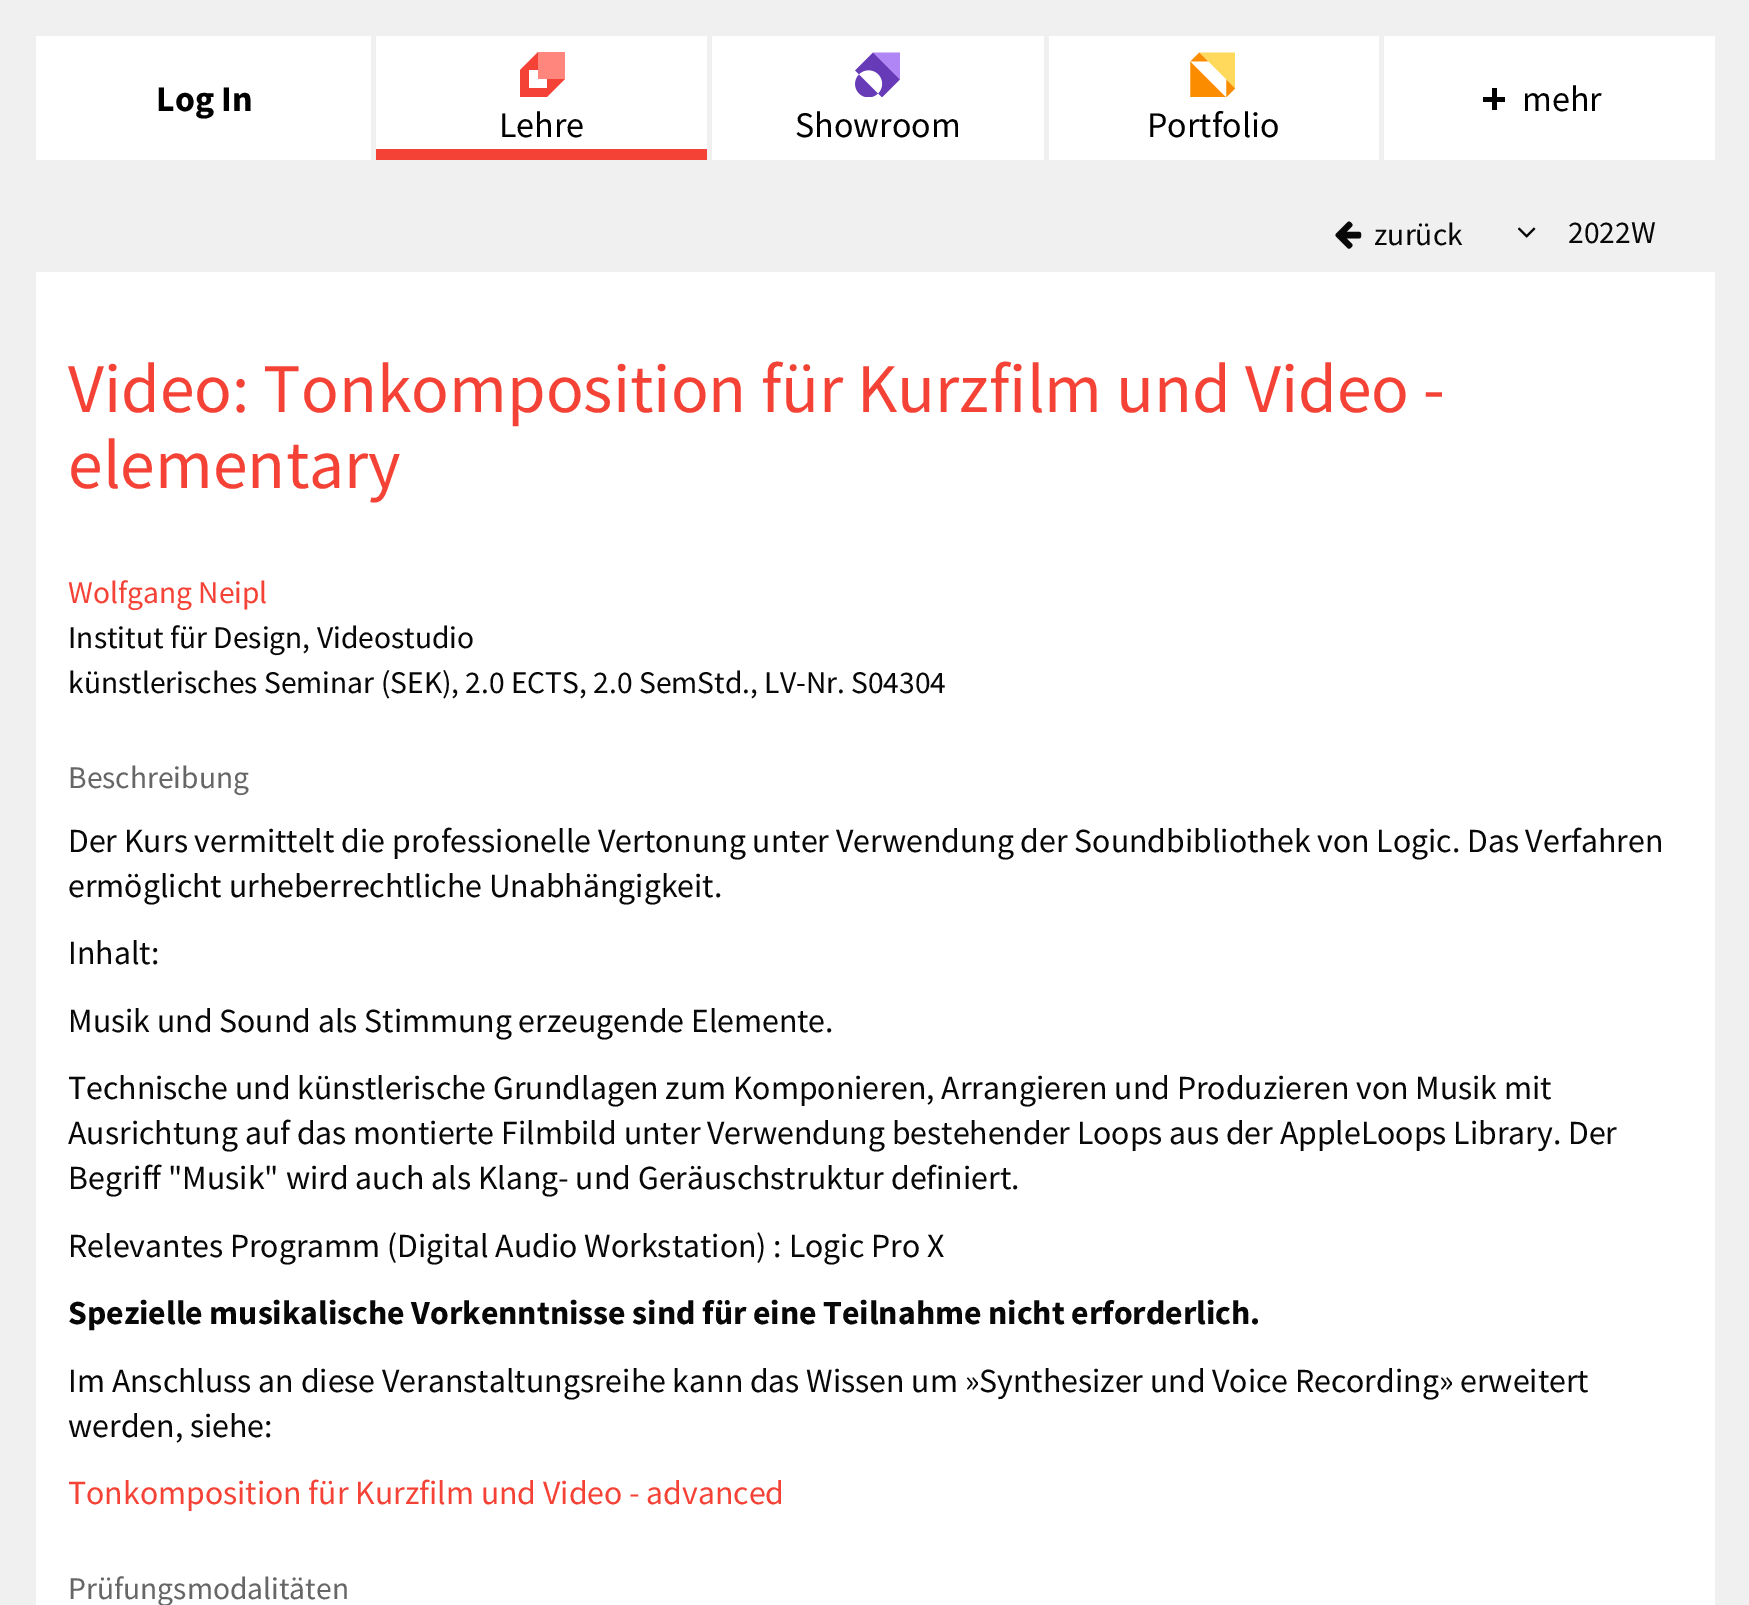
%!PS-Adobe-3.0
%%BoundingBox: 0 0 1749 1605
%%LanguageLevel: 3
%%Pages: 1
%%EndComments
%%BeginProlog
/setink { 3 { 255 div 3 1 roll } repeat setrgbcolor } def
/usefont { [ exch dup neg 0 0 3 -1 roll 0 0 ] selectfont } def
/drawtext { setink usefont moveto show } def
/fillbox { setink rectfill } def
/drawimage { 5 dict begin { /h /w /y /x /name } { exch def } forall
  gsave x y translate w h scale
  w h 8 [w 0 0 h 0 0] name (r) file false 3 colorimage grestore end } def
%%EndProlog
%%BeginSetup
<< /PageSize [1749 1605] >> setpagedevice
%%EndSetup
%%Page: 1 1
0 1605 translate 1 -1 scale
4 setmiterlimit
0 0 1749 1605 240 240 240 fillbox
376 36 1339 124 255 255 255 fillbox
36 36 335 124 255 255 255 fillbox
(Log In) 156 111 /SourceSansPro-Bold 36 0 0 0 drawtext
1379 36 5 124 240 240 240 fillbox
1492 88 5 22 0 0 0 fillbox
(mehr) 1522 111 /SourceSansPro-Regular 36 0 0 0 drawtext
1483 97 22 5 0 0 0 fillbox
376 149 331 11 244 67 54 fillbox
538 52 moveto 520 70 lineto 520 97 lineto 547 97 lineto 565 79 lineto closepath 529 88 moveto 529 70 lineto 547 70 lineto 547 88 lineto closepath fill
538 52 27 27 255 134 124 fillbox
(Lehre) 499 137 /SourceSansPro-Regular 36 0 0 0 drawtext
707 36 5 124 240 240 240 fillbox
(assets/img1.rgb) 855 52 45 45 drawimage
(Showroom) 795 137 /SourceSansPro-Regular 36 0 0 0 drawtext
1044 36 5 124 240 240 240 fillbox
(assets/img2.rgb) 1190 52 45 45 drawimage
(Portfolio) 1147 137 /SourceSansPro-Regular 36 0 0 0 drawtext
(assets/img3.rgb) 1335 221 27 28 drawimage
(zurück) 1374 245 /SourceSansPro-Regular 31.5 8 8 8 drawtext
(assets/img4.rgb) 1517 227 19 11 drawimage
(2022W) 1568 243 /SourceSansPro-Regular 31.5 8 8 8 drawtext
36 272 1679 1333 255 255 255 fillbox
(Video: Tonkomposition für Kurzfilm und Video -) 68 412 /SourceSansPro-Regular 69.75 244 67 54 drawtext
(elementary) 68 488 /SourceSansPro-Regular 69.75 244 67 54 drawtext
(Wolfgang Neipl) 68 603 /SourceSansPro-Regular 31.5 244 67 54 drawtext
(Institut für Design, Videostudio) 68 648 /SourceSansPro-Regular 31.5 8 8 8 drawtext
(künstlerisches Seminar \(SEK\), 2.0 ECTS, 2.0 SemStd., LV-Nr. S04304) 68 693 /SourceSansPro-Regular 31.5 8 8 8 drawtext
(Beschreibung) 68 788 /SourceSansPro-Regular 31.5 102 102 102 drawtext
(Der Kurs vermittelt die professionelle Vertonung unter Verwendung der Soundbibliothek von Logic. Das Verfahren) 68 852 /SourceSansPro-Regular 33.75 8 8 8 drawtext
(ermöglicht urheberrechtliche Unabhängigkeit.) 68 897 /SourceSansPro-Regular 33.75 8 8 8 drawtext
(Inhalt:) 68 964 /SourceSansPro-Regular 33.75 8 8 8 drawtext
(Musik und Sound als Stimmung erzeugende Elemente.) 68 1032 /SourceSansPro-Regular 33.75 8 8 8 drawtext
(Technische und künstlerische Grundlagen zum Komponieren, Arrangieren und Produzieren von Musik mit) 68 1099 /SourceSansPro-Regular 33.75 8 8 8 drawtext
(Ausrichtung auf das montierte Filmbild unter Verwendung bestehender Loops aus der AppleLoops Library. Der) 68 1144 /SourceSansPro-Regular 33.75 8 8 8 drawtext
(Begriff "Musik" wird auch als Klang- und Geräuschstruktur definiert.) 68 1189 /SourceSansPro-Regular 33.75 8 8 8 drawtext
(Relevantes Programm \(Digital Audio Workstation\) : Logic Pro X) 68 1257 /SourceSansPro-Regular 33.75 8 8 8 drawtext
(Spezielle musikalische Vorkenntnisse sind für eine Teilnahme nicht erforderlich.) 68 1324 /SourceSansPro-Bold 33.75 8 8 8 drawtext
(Im Anschluss an diese Veranstaltungsreihe kann das Wissen um »Synthesizer und Voice Recording» erweitert) 68 1392 /SourceSansPro-Regular 33.75 8 8 8 drawtext
(werden, siehe:) 68 1437 /SourceSansPro-Regular 33.75 8 8 8 drawtext
(Tonkomposition für Kurzfilm und Video - advanced) 68 1504 /SourceSansPro-Regular 33.75 244 67 54 drawtext
(Prüfungsmodalitäten) 68 1599 /SourceSansPro-Regular 31.5 102 102 102 drawtext
showpage
%%EOF
